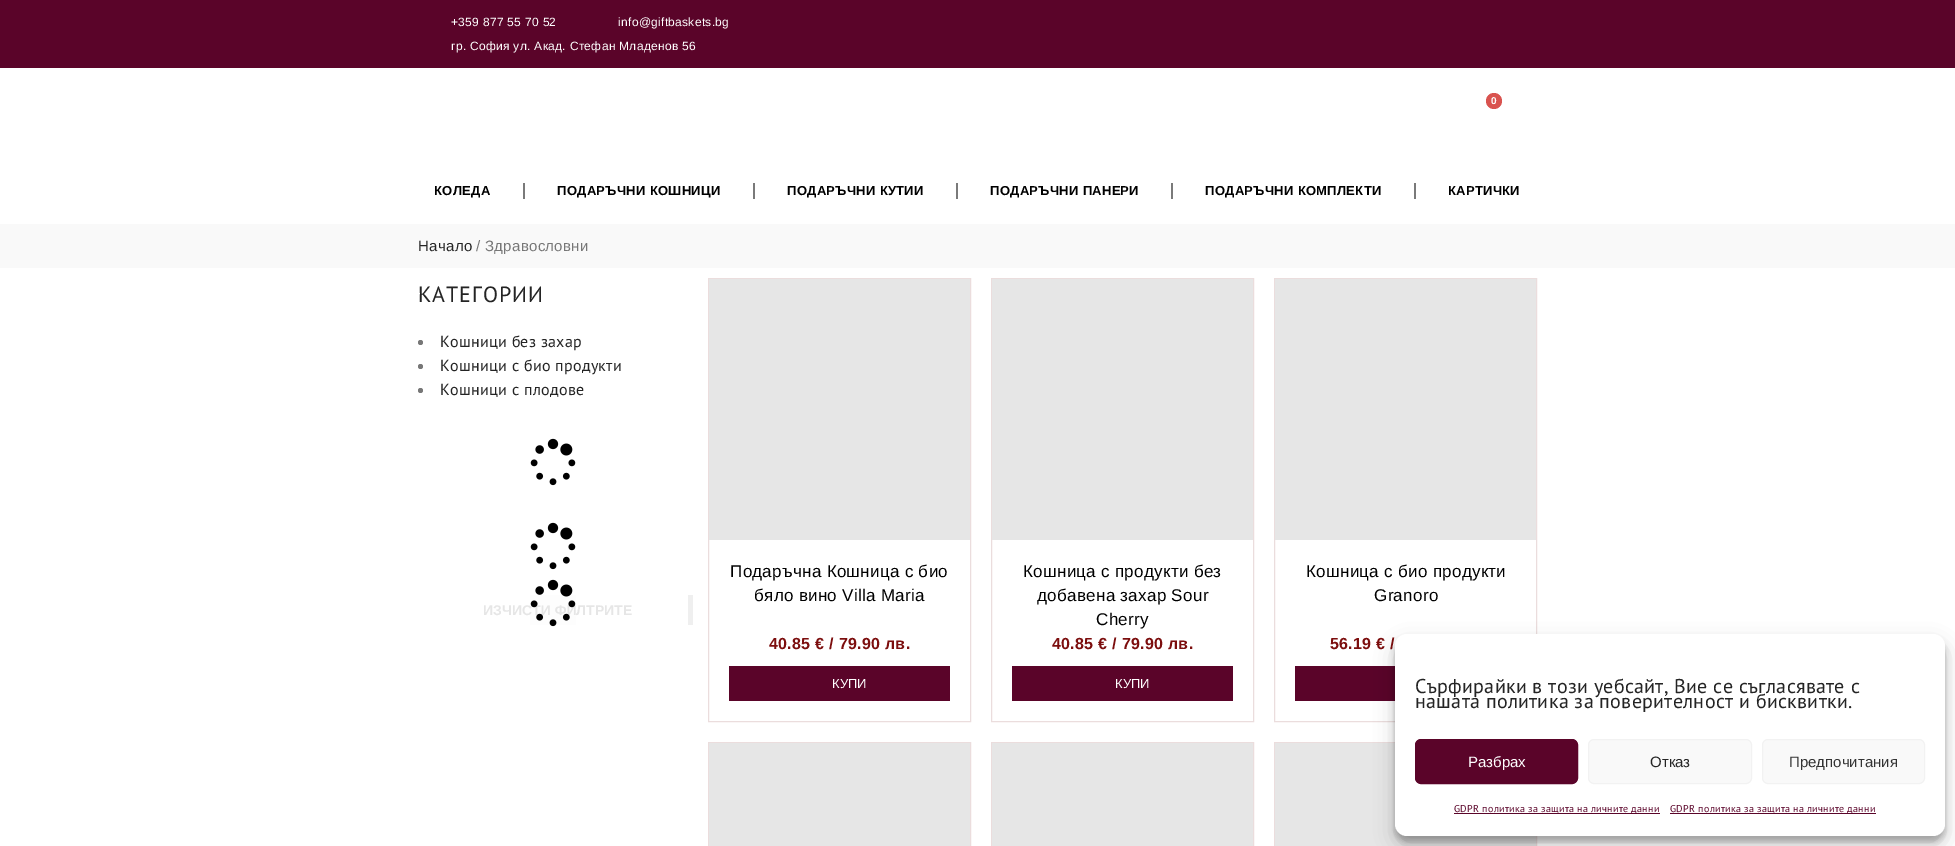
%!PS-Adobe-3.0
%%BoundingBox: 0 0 1955 846
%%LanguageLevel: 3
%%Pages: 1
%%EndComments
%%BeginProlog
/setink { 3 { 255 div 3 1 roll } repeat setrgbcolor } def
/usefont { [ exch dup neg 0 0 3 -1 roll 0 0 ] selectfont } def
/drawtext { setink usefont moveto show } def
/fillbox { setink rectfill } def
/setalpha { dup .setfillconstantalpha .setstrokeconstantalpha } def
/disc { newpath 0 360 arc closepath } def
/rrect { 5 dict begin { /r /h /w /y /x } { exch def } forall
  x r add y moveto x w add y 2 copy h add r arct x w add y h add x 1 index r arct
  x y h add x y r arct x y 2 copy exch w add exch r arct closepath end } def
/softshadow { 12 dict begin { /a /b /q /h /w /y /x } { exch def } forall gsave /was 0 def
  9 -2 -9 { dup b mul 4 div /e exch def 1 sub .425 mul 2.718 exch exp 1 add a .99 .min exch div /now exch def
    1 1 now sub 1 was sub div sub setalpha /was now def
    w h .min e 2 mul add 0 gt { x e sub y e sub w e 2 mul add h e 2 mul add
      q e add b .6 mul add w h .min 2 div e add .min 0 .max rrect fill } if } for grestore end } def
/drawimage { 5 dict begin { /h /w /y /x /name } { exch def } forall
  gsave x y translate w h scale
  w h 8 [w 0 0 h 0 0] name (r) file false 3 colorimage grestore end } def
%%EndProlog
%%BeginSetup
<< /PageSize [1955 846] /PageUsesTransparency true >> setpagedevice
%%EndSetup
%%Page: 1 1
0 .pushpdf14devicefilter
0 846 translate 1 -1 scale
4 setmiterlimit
0 0 1955 846 255 255 255 fillbox
0 0 1955 68 90 4 41 fillbox
/LiberationSans-Regular 12 usefont
255 255 255 setink
451 26 moveto 0.3 0 (+359 877 55 70 52) ashow
618 26 moveto 0.3 0 (info@giftbaskets.bg) ashow
451 50 moveto 0.3 0 (гр. София ул. Акад. Стефан Младенов 56) ashow
217 83 79 setink
1494 101 8 disc fill
/LiberationSans-Bold 10 usefont
255 255 255 setink
1491 104 moveto 0.3 0 (0) ashow
/LiberationSans-Bold 13 usefont
0 0 0 setink
434 195 moveto 0.3 0 (КОЛЕДА) ashow
523 183 2 16 122 122 122 fillbox
0 0 0 setink
557 195 moveto 0.3 0 (ПОДАРЪЧНИ КОШНИЦИ) ashow
753 183 2 16 122 122 122 fillbox
0 0 0 setink
787 195 moveto 0.3 0 (ПОДАРЪЧНИ КУТИИ) ashow
956 183 2 16 122 122 122 fillbox
0 0 0 setink
990 195 moveto 0.3 0 (ПОДАРЪЧНИ ПАНЕРИ) ashow
1171 183 2 16 122 122 122 fillbox
0 0 0 setink
1205 195 moveto 0.3 0 (ПОДАРЪЧНИ КОМПЛЕКТИ) ashow
1414 183 2 16 122 122 122 fillbox
0 0 0 setink
1448 195 moveto 0.3 0 (КАРТИЧКИ) ashow
0 224 1955 44 249 249 249 fillbox
/LiberationSans-Regular 15 usefont
36 36 36 setink
418 251 moveto 0.3 0 (Начало) ashow
119 119 119 setink
476 251 moveto 0.3 0 (/ Здравословни) ashow
/PTSans-Regular 22 usefont
36 36 36 setink
418 302 moveto 1 0 (КАТЕГОРИИ) ashow
119 119 119 setink
420.5 342.5 2.5 disc fill
/PTSans-Regular 16 usefont
36 36 36 setink
440 347 moveto 0.3 0 (Кошници без захар) ashow
119 119 119 setink
420.5 366.5 2.5 disc fill
36 36 36 setink
440 371 moveto 0.3 0 (Кошници с био продукти) ashow
119 119 119 setink
420.5 390.5 2.5 disc fill
36 36 36 setink
440 395 moveto 0.3 0 (Кошници с плодове) ashow
(assets/img1.rgb) 530 438 46 48 drawimage
(assets/img1.rgb) 530 522 46 48 drawimage
(ИЗЧИСТИ ФИЛТРИТЕ) 483 615 /LiberationSans-Bold 14 230 230 230 drawtext
(assets/img2.rgb) 530 579 46 48 drawimage
688 595 5 30 239 239 239 fillbox
235 221 221 setink
708.5 278.5 262 443 rectstroke
709 279 261 261 230 230 230 fillbox
/LiberationSans-Regular 17 usefont
0 0 0 setink
730 577 moveto 0.3 0 (Подаръчна Кошница с био) ashow
754 601 moveto 0.3 0 (бяло вино Villa Maria) ashow
/LiberationSans-Bold 16 usefont
124 14 14 setink
769 649 moveto 0.3 0 (40.85 € / 79.90 лв.) ashow
729 666 221 35 90 4 41 fillbox
(КУПИ) 832 688 /LiberationSans-Regular 13 255 255 255 drawtext
235 221 221 setink
991.5 278.5 262 443 rectstroke
992 279 261 261 230 230 230 fillbox
/LiberationSans-Regular 17 usefont
0 0 0 setink
1023 577 moveto 0.3 0 (Кошница с продукти без) ashow
1037 601 moveto 0.3 0 (добавена захар Sour) ashow
1096 625 moveto 0.3 0 (Cherry) ashow
/LiberationSans-Bold 16 usefont
124 14 14 setink
1052 649 moveto 0.3 0 (40.85 € / 79.90 лв.) ashow
1012 666 221 35 90 4 41 fillbox
(КУПИ) 1115 688 /LiberationSans-Regular 13 255 255 255 drawtext
235 221 221 setink
1274.5 278.5 262 443 rectstroke
1275 279 261 261 230 230 230 fillbox
/LiberationSans-Regular 17 usefont
0 0 0 setink
1306 577 moveto 0.3 0 (Кошница с био продукти) ashow
1374 601 moveto 0.3 0 (Granoro) ashow
/LiberationSans-Bold 16 usefont
124 14 14 setink
1330 649 moveto 0.3 0 (56.19 € /) ashow
1295 666 100 35 90 4 41 fillbox
235 221 221 setink
708.5 742.5 262 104 rectstroke
709 743 261 103 230 230 230 fillbox
235 221 221 setink
991.5 742.5 262 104 rectstroke
992 743 261 103 230 230 230 fillbox
235 221 221 setink
1274.5 742.5 262 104 rectstroke
1275 743 261 103 230 230 230 fillbox
0 0 0 setink
1395 640 550 202 12 3 0.23 softshadow
1395 644 550 202 12 10 0.19 softshadow
255 255 255 setink
1395 634 550 202 12 rrect fill
/PTSans-Regular 20 usefont
36 36 36 setink
1415 693 moveto 0.3 0 (Сърфирайки в този уебсайт, Вие се съгласявате с) ashow
1415 708 moveto 0.3 0 (нашата политика за поверителност и бисквитки.) ashow
90 4 41 setink
1415.5 739.5 162 44 5.5 rrect gsave fill grestore
stroke
(Разбрах) 1468 767 /LiberationSans-Regular 15 255 255 255 drawtext
249 249 249 setink
1588.5 739.5 163 44 5.5 rrect gsave fill grestore
242 242 242 setink
stroke
(Отказ) 1650 767 /LiberationSans-Regular 15 36 36 36 drawtext
249 249 249 setink
1762.5 739.5 162 44 5.5 rrect gsave fill grestore
242 242 242 setink
stroke
(Предпочитания) 1789 767 /LiberationSans-Regular 15 51 51 51 drawtext
1454 813 206 1 90 4 41 fillbox
/PTSans-Regular 10 usefont
1454 812 moveto 0.3 0 (GDPR политика за защита на личните данни) ashow
1670 813 206 1 90 4 41 fillbox
1670 812 moveto 0.3 0 (GDPR политика за защита на личните данни) ashow
.poppdf14devicefilter showpage
%%EOF
